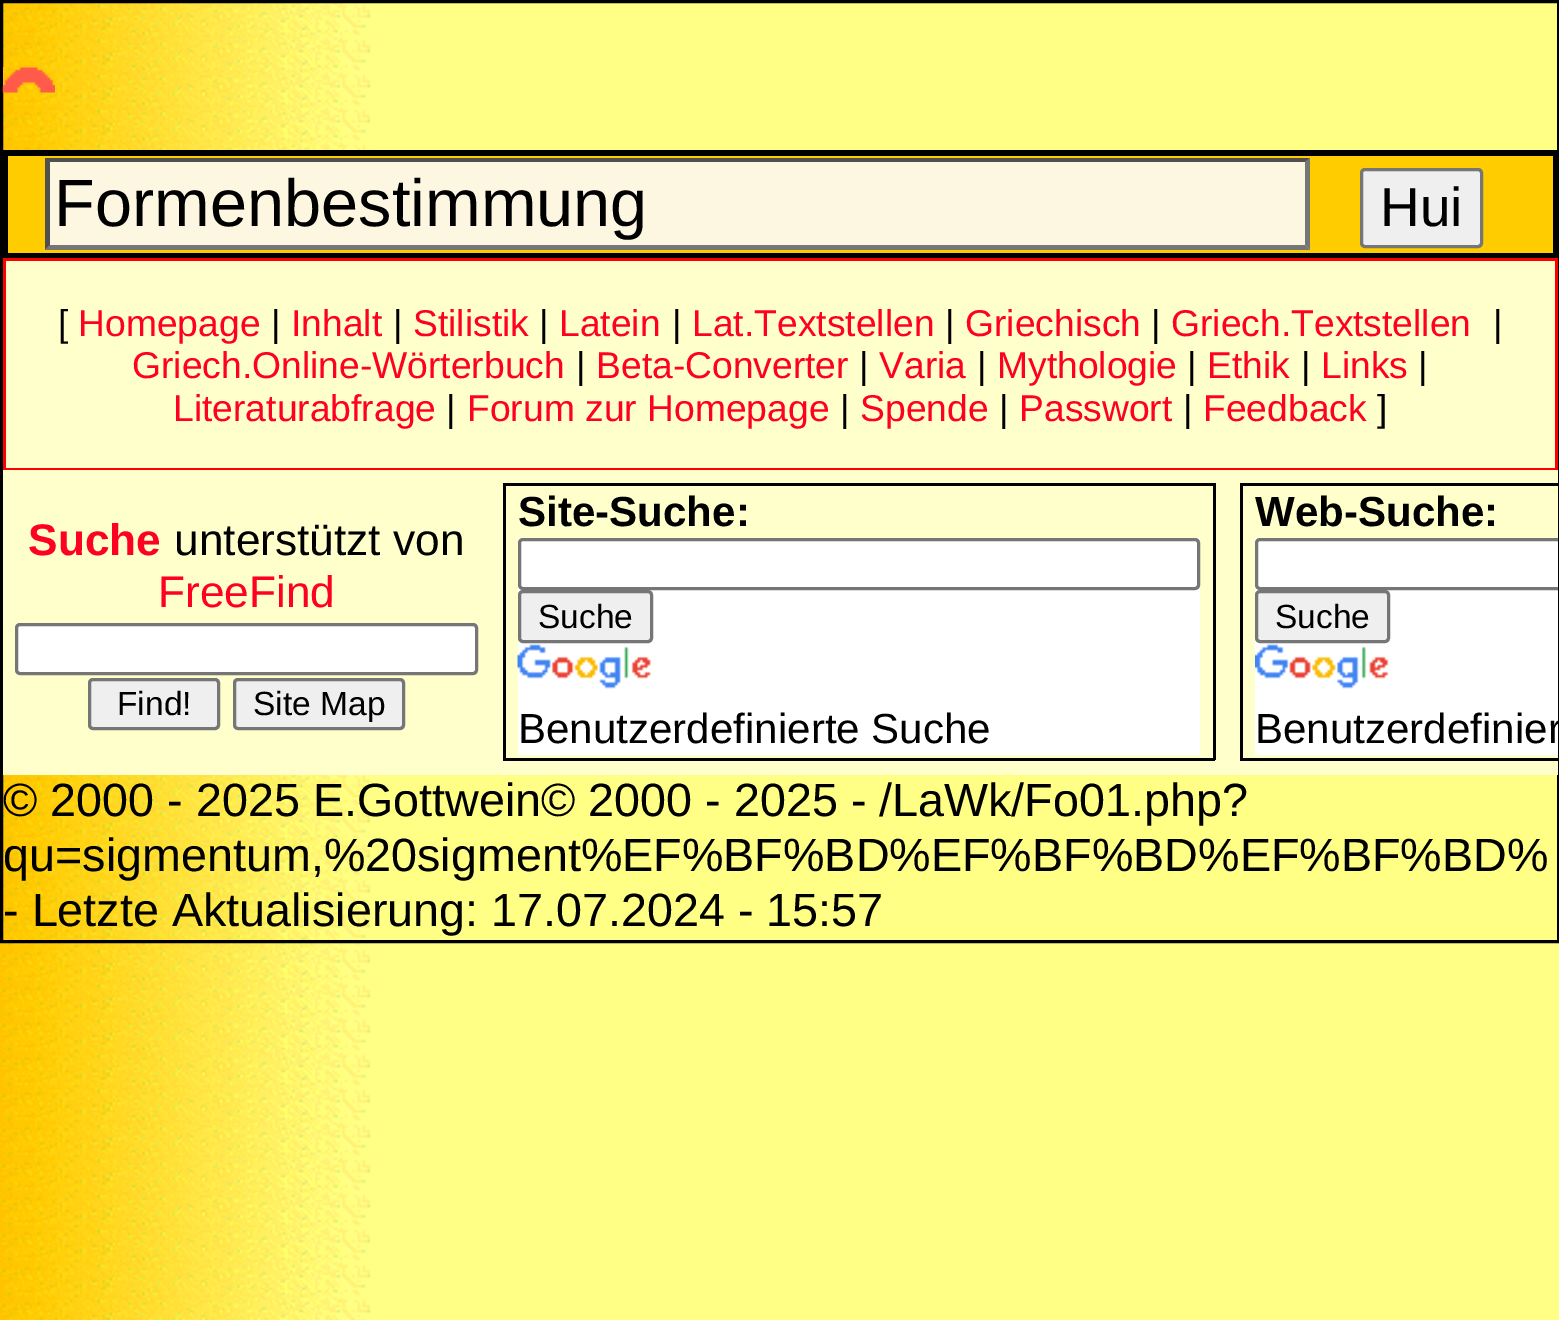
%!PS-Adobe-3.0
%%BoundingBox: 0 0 1559 1320
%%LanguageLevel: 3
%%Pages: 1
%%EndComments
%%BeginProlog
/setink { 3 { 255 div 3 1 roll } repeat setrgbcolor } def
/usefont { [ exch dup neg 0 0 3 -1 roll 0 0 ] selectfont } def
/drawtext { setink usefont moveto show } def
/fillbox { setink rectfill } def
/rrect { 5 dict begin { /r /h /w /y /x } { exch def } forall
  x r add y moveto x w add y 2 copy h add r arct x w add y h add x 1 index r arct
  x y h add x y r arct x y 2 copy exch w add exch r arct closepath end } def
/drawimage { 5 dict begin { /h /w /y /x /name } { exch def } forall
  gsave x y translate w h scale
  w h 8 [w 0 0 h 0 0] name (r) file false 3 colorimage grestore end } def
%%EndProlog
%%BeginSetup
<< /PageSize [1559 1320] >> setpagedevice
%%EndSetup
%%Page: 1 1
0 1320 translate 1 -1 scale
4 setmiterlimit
0 0 1559 1320 255 255 255 fillbox
(assets/img1.rgb) 0 3 1559 1317 drawimage
0 0 0 setink
3 setlinewidth
1.5 1.5 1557 940 rectstroke
(assets/img2.rgb) 2 67 53 26 drawimage
8 156 1545 97 255 204 0 fillbox
0 0 0 setink
4.5 151.5 1552 105 rectstroke
5 153 1550 3 0 0 0 fillbox
1553 153 2 102 0 0 0 fillbox
5 253 1550 2 0 0 0 fillbox
6 153 2 102 0 0 0 fillbox
45 158 1265 92 253 247 225 fillbox
79 79 79 setink
45 158 moveto 1310 158 lineto 1305 162 lineto 50 162 lineto closepath fill
118 118 118 setink
1310 158 moveto 1310 250 lineto 1305 245 lineto 1305 162 lineto closepath fill
1310 250 moveto 45 250 lineto 50 245 lineto 1305 245 lineto closepath fill
79 79 79 setink
45 250 moveto 45 158 lineto 50 162 lineto 50 245 lineto closepath fill
(Formenbestimmung) 54 226 /LiberationSans-Regular 66.75 0 0 0 drawtext
239 239 239 setink
1361.5 169.5 120 77 3.5 rrect gsave fill grestore
118 118 118 setink
stroke
(Hui) 1380 226 /LiberationSans-Regular 55 0 0 0 drawtext
6 261 1549 207 255 255 204 fillbox
3 258 1555 3 255 0 0 fillbox
1555 258 3 212 255 0 0 fillbox
3 468 1555 2 255 0 0 fillbox
3 258 3 212 255 0 0 fillbox
([) 58 336 /LiberationSans-Regular 37.25 0 0 0 drawtext
(Homepage) 78 336 /LiberationSans-Regular 37.25 255 0 34 drawtext
(|) 271 336 /LiberationSans-Regular 37.25 0 0 0 drawtext
(Inhalt) 291 336 /LiberationSans-Regular 37.25 255 0 34 drawtext
(|) 393 336 /LiberationSans-Regular 37.25 0 0 0 drawtext
(Stilistik) 413 336 /LiberationSans-Regular 37.25 255 0 34 drawtext
(|) 539 336 /LiberationSans-Regular 37.25 0 0 0 drawtext
(Latein) 559 336 /LiberationSans-Regular 37.25 255 0 34 drawtext
(|) 672 336 /LiberationSans-Regular 37.25 0 0 0 drawtext
(Lat.Textstellen) 692 336 /LiberationSans-Regular 37.25 255 0 34 drawtext
(|) 945 336 /LiberationSans-Regular 37.25 0 0 0 drawtext
(Griechisch) 965 336 /LiberationSans-Regular 37.25 255 0 34 drawtext
(|) 1151 336 /LiberationSans-Regular 37.25 0 0 0 drawtext
(Griech.Textstellen) 1171 336 /LiberationSans-Regular 37.25 255 0 34 drawtext
(|) 1493 336 /LiberationSans-Regular 37.25 0 0 0 drawtext
(Griech.Online-Wörterbuch) 132 378 /LiberationSans-Regular 37.25 255 0 34 drawtext
(|) 576 378 /LiberationSans-Regular 37.25 0 0 0 drawtext
(Beta-Converter) 596 378 /LiberationSans-Regular 37.25 255 0 34 drawtext
(|) 859 378 /LiberationSans-Regular 37.25 0 0 0 drawtext
(Varia) 879 378 /LiberationSans-Regular 37.25 255 0 34 drawtext
(|) 977 378 /LiberationSans-Regular 37.25 0 0 0 drawtext
(Mythologie) 997 378 /LiberationSans-Regular 37.25 255 0 34 drawtext
(|) 1187 378 /LiberationSans-Regular 37.25 0 0 0 drawtext
(Ethik) 1207 378 /LiberationSans-Regular 37.25 255 0 34 drawtext
(|) 1301 378 /LiberationSans-Regular 37.25 0 0 0 drawtext
(Links) 1321 378 /LiberationSans-Regular 37.25 255 0 34 drawtext
(|) 1418 378 /LiberationSans-Regular 37.25 0 0 0 drawtext
(Literaturabfrage) 173 421 /LiberationSans-Regular 37.25 255 0 34 drawtext
(|) 446 421 /LiberationSans-Regular 37.25 0 0 0 drawtext
(Forum zur Homepage) 467 421 /LiberationSans-Regular 37.25 255 0 34 drawtext
(|) 840 421 /LiberationSans-Regular 37.25 0 0 0 drawtext
(Spende) 860 421 /LiberationSans-Regular 37.25 255 0 34 drawtext
(|) 999 421 /LiberationSans-Regular 37.25 0 0 0 drawtext
(Passwort) 1019 421 /LiberationSans-Regular 37.25 255 0 34 drawtext
(|) 1183 421 /LiberationSans-Regular 37.25 0 0 0 drawtext
(Feedback) 1203 421 /LiberationSans-Regular 37.25 255 0 34 drawtext
(]) 1377 421 /LiberationSans-Regular 37.25 0 0 0 drawtext
3 470 1555 305 255 255 204 fillbox
(Suche) 28 555 /LiberationSans-Bold 44.25 255 0 34 drawtext
(unterstützt von) 174 555 /LiberationSans-Regular 44.25 0 0 0 drawtext
(FreeFind) 158 607 /LiberationSans-Regular 44.25 255 0 34 drawtext
255 255 255 setink
16.5 624.5 460 49 3.5 rrect gsave fill grestore
118 118 118 setink
stroke
239 239 239 setink
89.5 679.5 129 49 3.5 rrect gsave fill grestore
118 118 118 setink
stroke
(Find!) 117 715 /LiberationSans-Regular 33.5 0 0 0 drawtext
239 239 239 setink
234.5 679.5 169 49 3.5 rrect gsave fill grestore
118 118 118 setink
stroke
(Site Map) 253 715 /LiberationSans-Regular 33.5 0 0 0 drawtext
503 483 712 3 0 0 0 fillbox
1213 483 3 277 0 0 0 fillbox
503 758 712 3 0 0 0 fillbox
503 483 3 277 0 0 0 fillbox
(Site-Suche:) 518 526 /LiberationSans-Bold 42.1 0 0 0 drawtext
518 538 682 217 255 255 255 fillbox
118 118 118 setink
519.5 539.5 679 49 3.5 rrect stroke
239 239 239 setink
519.5 591.5 132 50 3.5 rrect gsave fill grestore
118 118 118 setink
stroke
(Suche) 538 628 /LiberationSans-Regular 33.5 0 0 0 drawtext
(assets/img3.rgb) 517 644 134 45 drawimage
(Benutzerdefinierte Suche) 518 743 /LiberationSans-Regular 42.1 0 0 0 drawtext
1240 483 318 3 0 0 0 fillbox
1240 758 318 3 0 0 0 fillbox
1240 483 3 277 0 0 0 fillbox
(Web-Suche:) 1255 526 /LiberationSans-Bold 42.1 0 0 0 drawtext
1255 538 303 217 255 255 255 fillbox
gsave
3 3 1555 937 rectclip
118 118 118 setink
1256.5 539.5 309 49 3.5 rrect stroke
grestore
239 239 239 setink
1256.5 591.5 132 50 3.5 rrect gsave fill grestore
118 118 118 setink
stroke
(Suche) 1275 628 /LiberationSans-Regular 33.5 0 0 0 drawtext
(assets/img4.rgb) 1255 644 134 45 drawimage
gsave
3 3 1555 937 rectclip
(Benutzerdefinier) 1255 743 /LiberationSans-Regular 42.1 0 0 0 drawtext
grestore
(© 2000 - 2025 E.Gottwein© 2000 - 2025 - /LaWk/Fo01.php?) 3 816 /LiberationSans-Regular 46.7 0 0 0 drawtext
(qu=sigmentum,%20sigment%EF%BF%BD%EF%BF%BD%EF%BF%BD%) 3 871 /LiberationSans-Regular 46.7 0 0 0 drawtext
(- Letzte Aktualisierung: 17.07.2024 - 15:57) 3 926 /LiberationSans-Regular 46.7 0 0 0 drawtext
showpage
%%EOF
